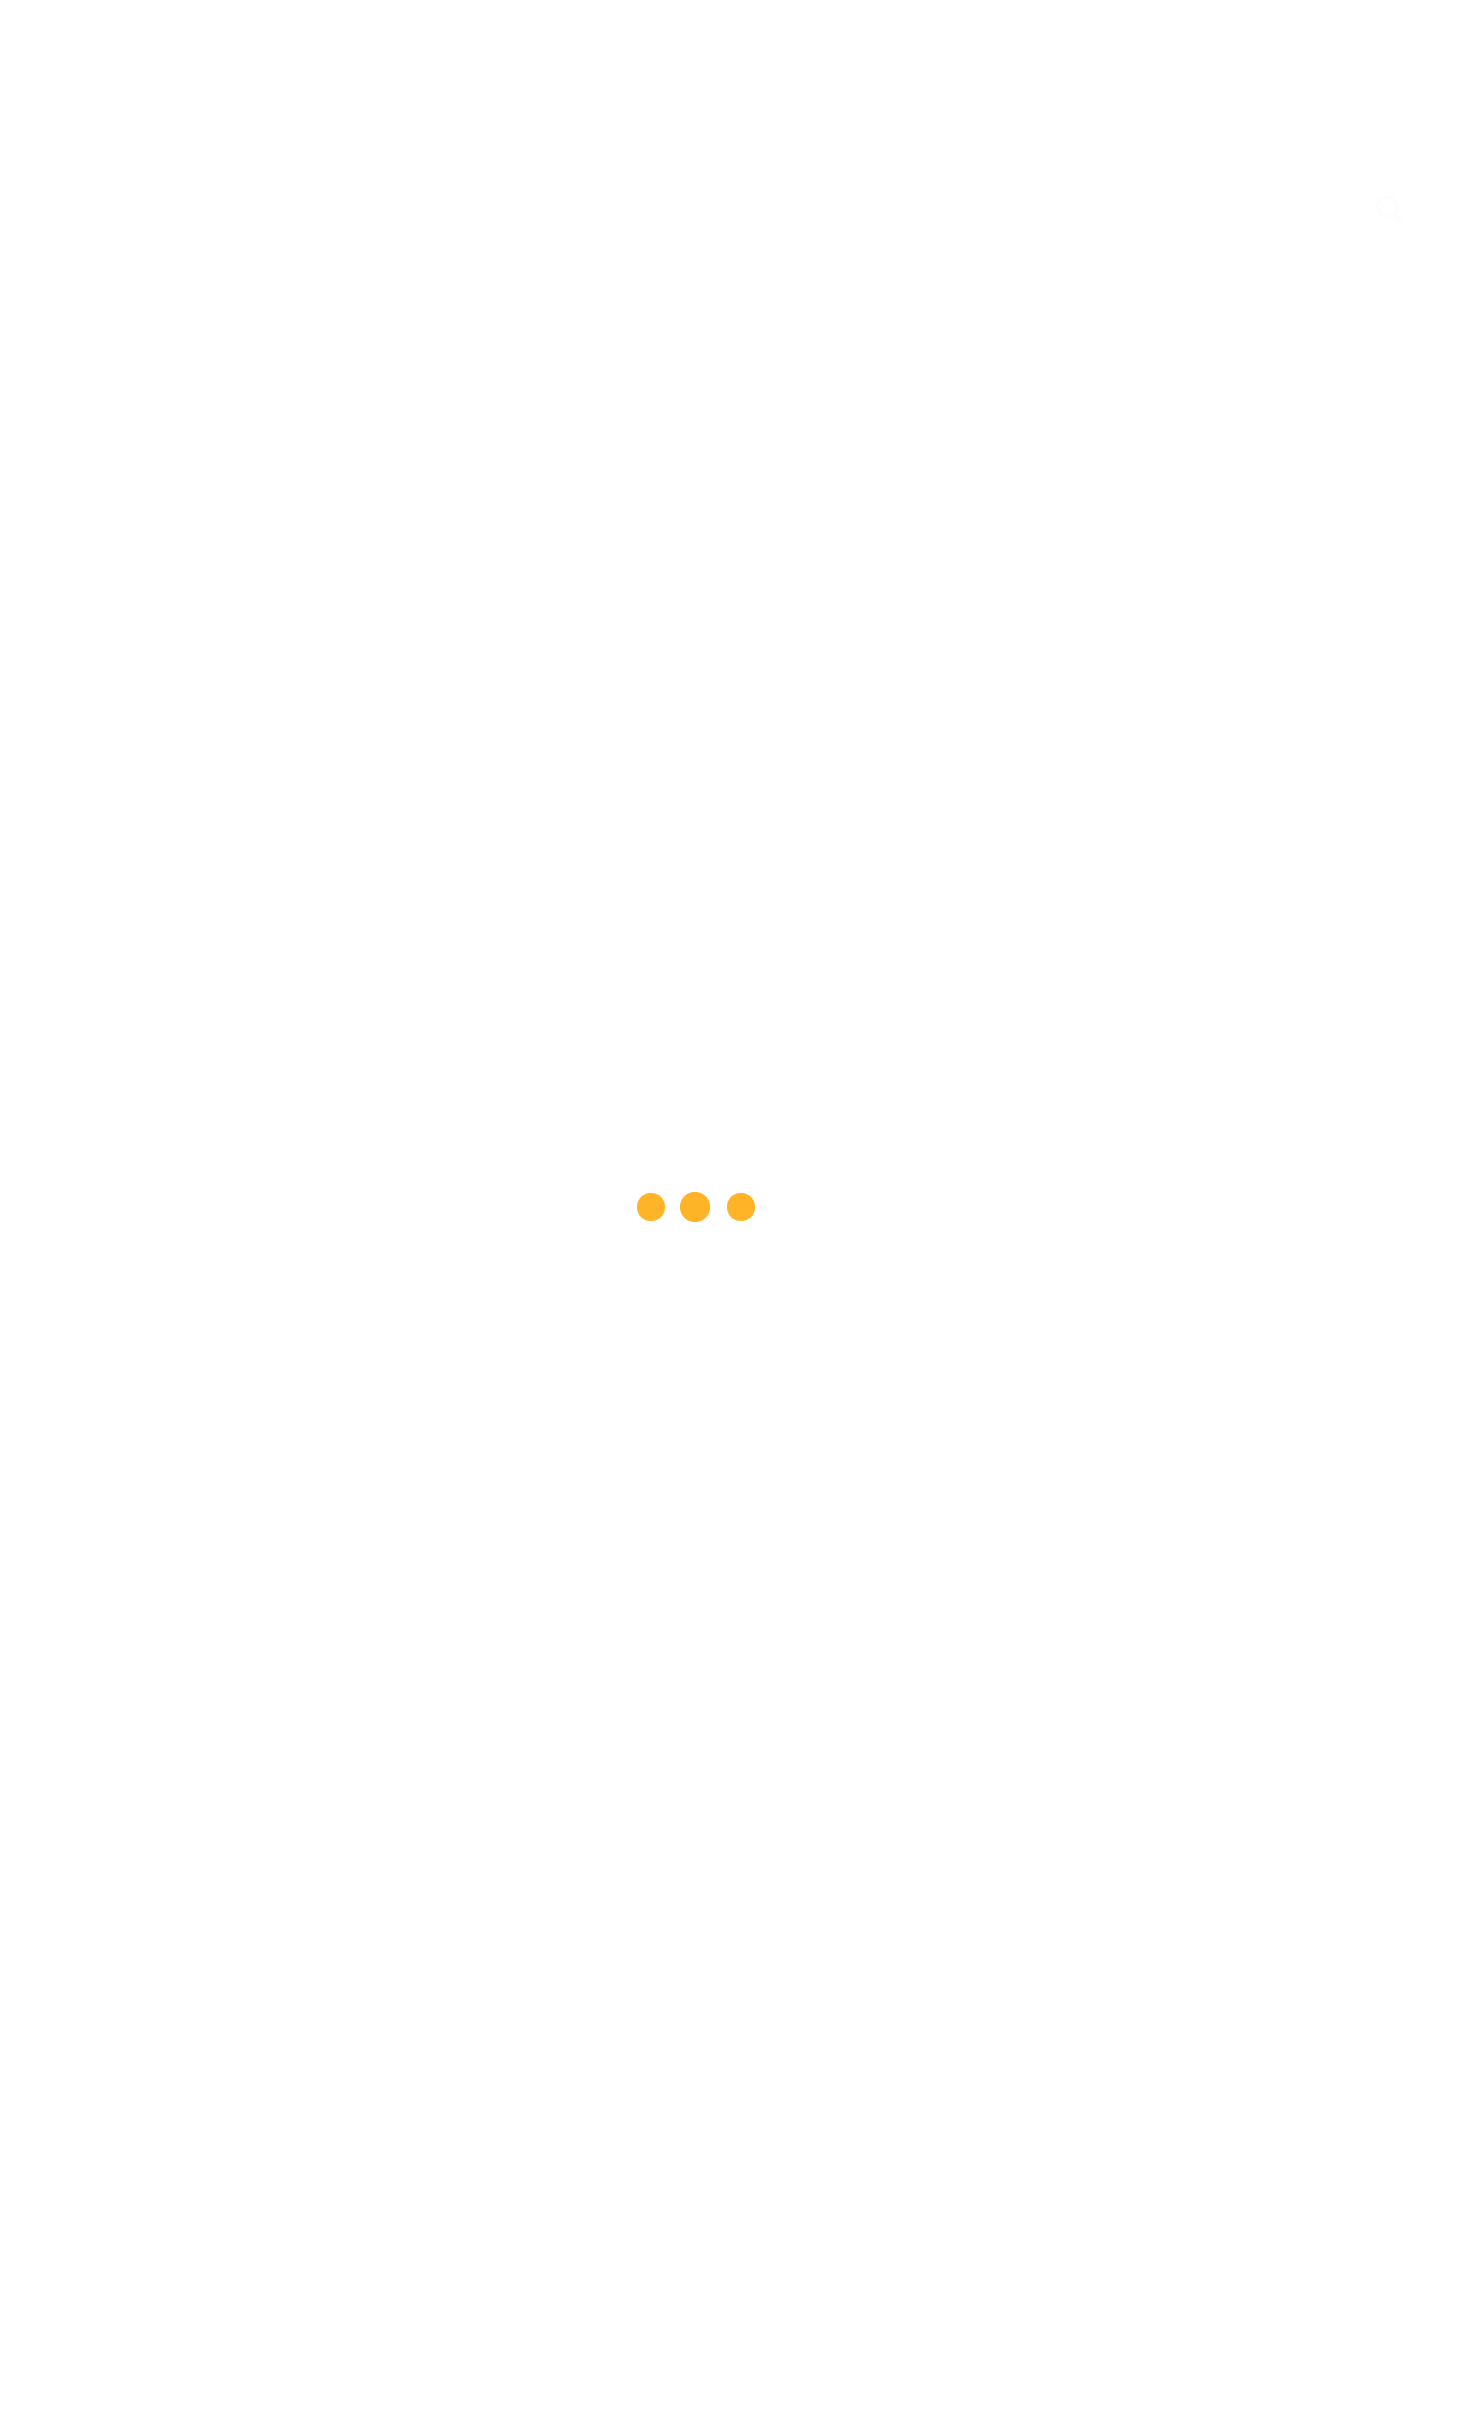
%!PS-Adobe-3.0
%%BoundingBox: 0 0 1470 2414
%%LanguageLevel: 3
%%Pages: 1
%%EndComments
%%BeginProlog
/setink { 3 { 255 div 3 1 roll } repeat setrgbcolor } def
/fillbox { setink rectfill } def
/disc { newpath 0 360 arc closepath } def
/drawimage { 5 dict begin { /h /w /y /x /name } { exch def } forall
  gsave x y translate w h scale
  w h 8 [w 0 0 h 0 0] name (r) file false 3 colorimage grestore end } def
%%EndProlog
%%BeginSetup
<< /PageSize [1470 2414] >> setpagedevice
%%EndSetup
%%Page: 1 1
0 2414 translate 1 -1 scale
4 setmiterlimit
0 0 1470 2414 255 255 255 fillbox
(assets/img1.rgb) 1376 195 28 29 drawimage
gsave 726 1192 moveto 756 1192 lineto 756 1222 lineto 726 1222 lineto closepath clip newpath 741 1207 translate 15 15 scale
<< /ShadingType 3 /ColorSpace /DeviceRGB /Coords [0 0 0 0 0 1] /Extend [true true] /Function << /FunctionType 3 /Domain [0 1] /Functions [<< /FunctionType 2 /Domain [0 1] /C0 [1 0.706 0.157] /C1 [1 0.706 0.157] /N 1 >> << /FunctionType 2 /Domain [0 1] /C0 [1 0.706 0.157] /C1 [1 1 1] /N 1 >>] /Bounds [0.9] /Encode [0 1 0 1] >> >> shfill grestore
gsave 636 1192 moveto 666 1192 lineto 666 1222 lineto 636 1222 lineto closepath clip newpath 651 1207 translate 15 15 scale
<< /ShadingType 3 /ColorSpace /DeviceRGB /Coords [0 0 0 0 0 1] /Extend [true true] /Function << /FunctionType 3 /Domain [0 1] /Functions [<< /FunctionType 2 /Domain [0 1] /C0 [1 0.706 0.157] /C1 [1 0.706 0.157] /N 1 >> << /FunctionType 2 /Domain [0 1] /C0 [1 0.706 0.157] /C1 [1 1 1] /N 1 >>] /Bounds [0.9] /Encode [0 1 0 1] >> >> shfill grestore
255 180 40 setink
695 1207 15 disc fill
showpage
%%EOF
